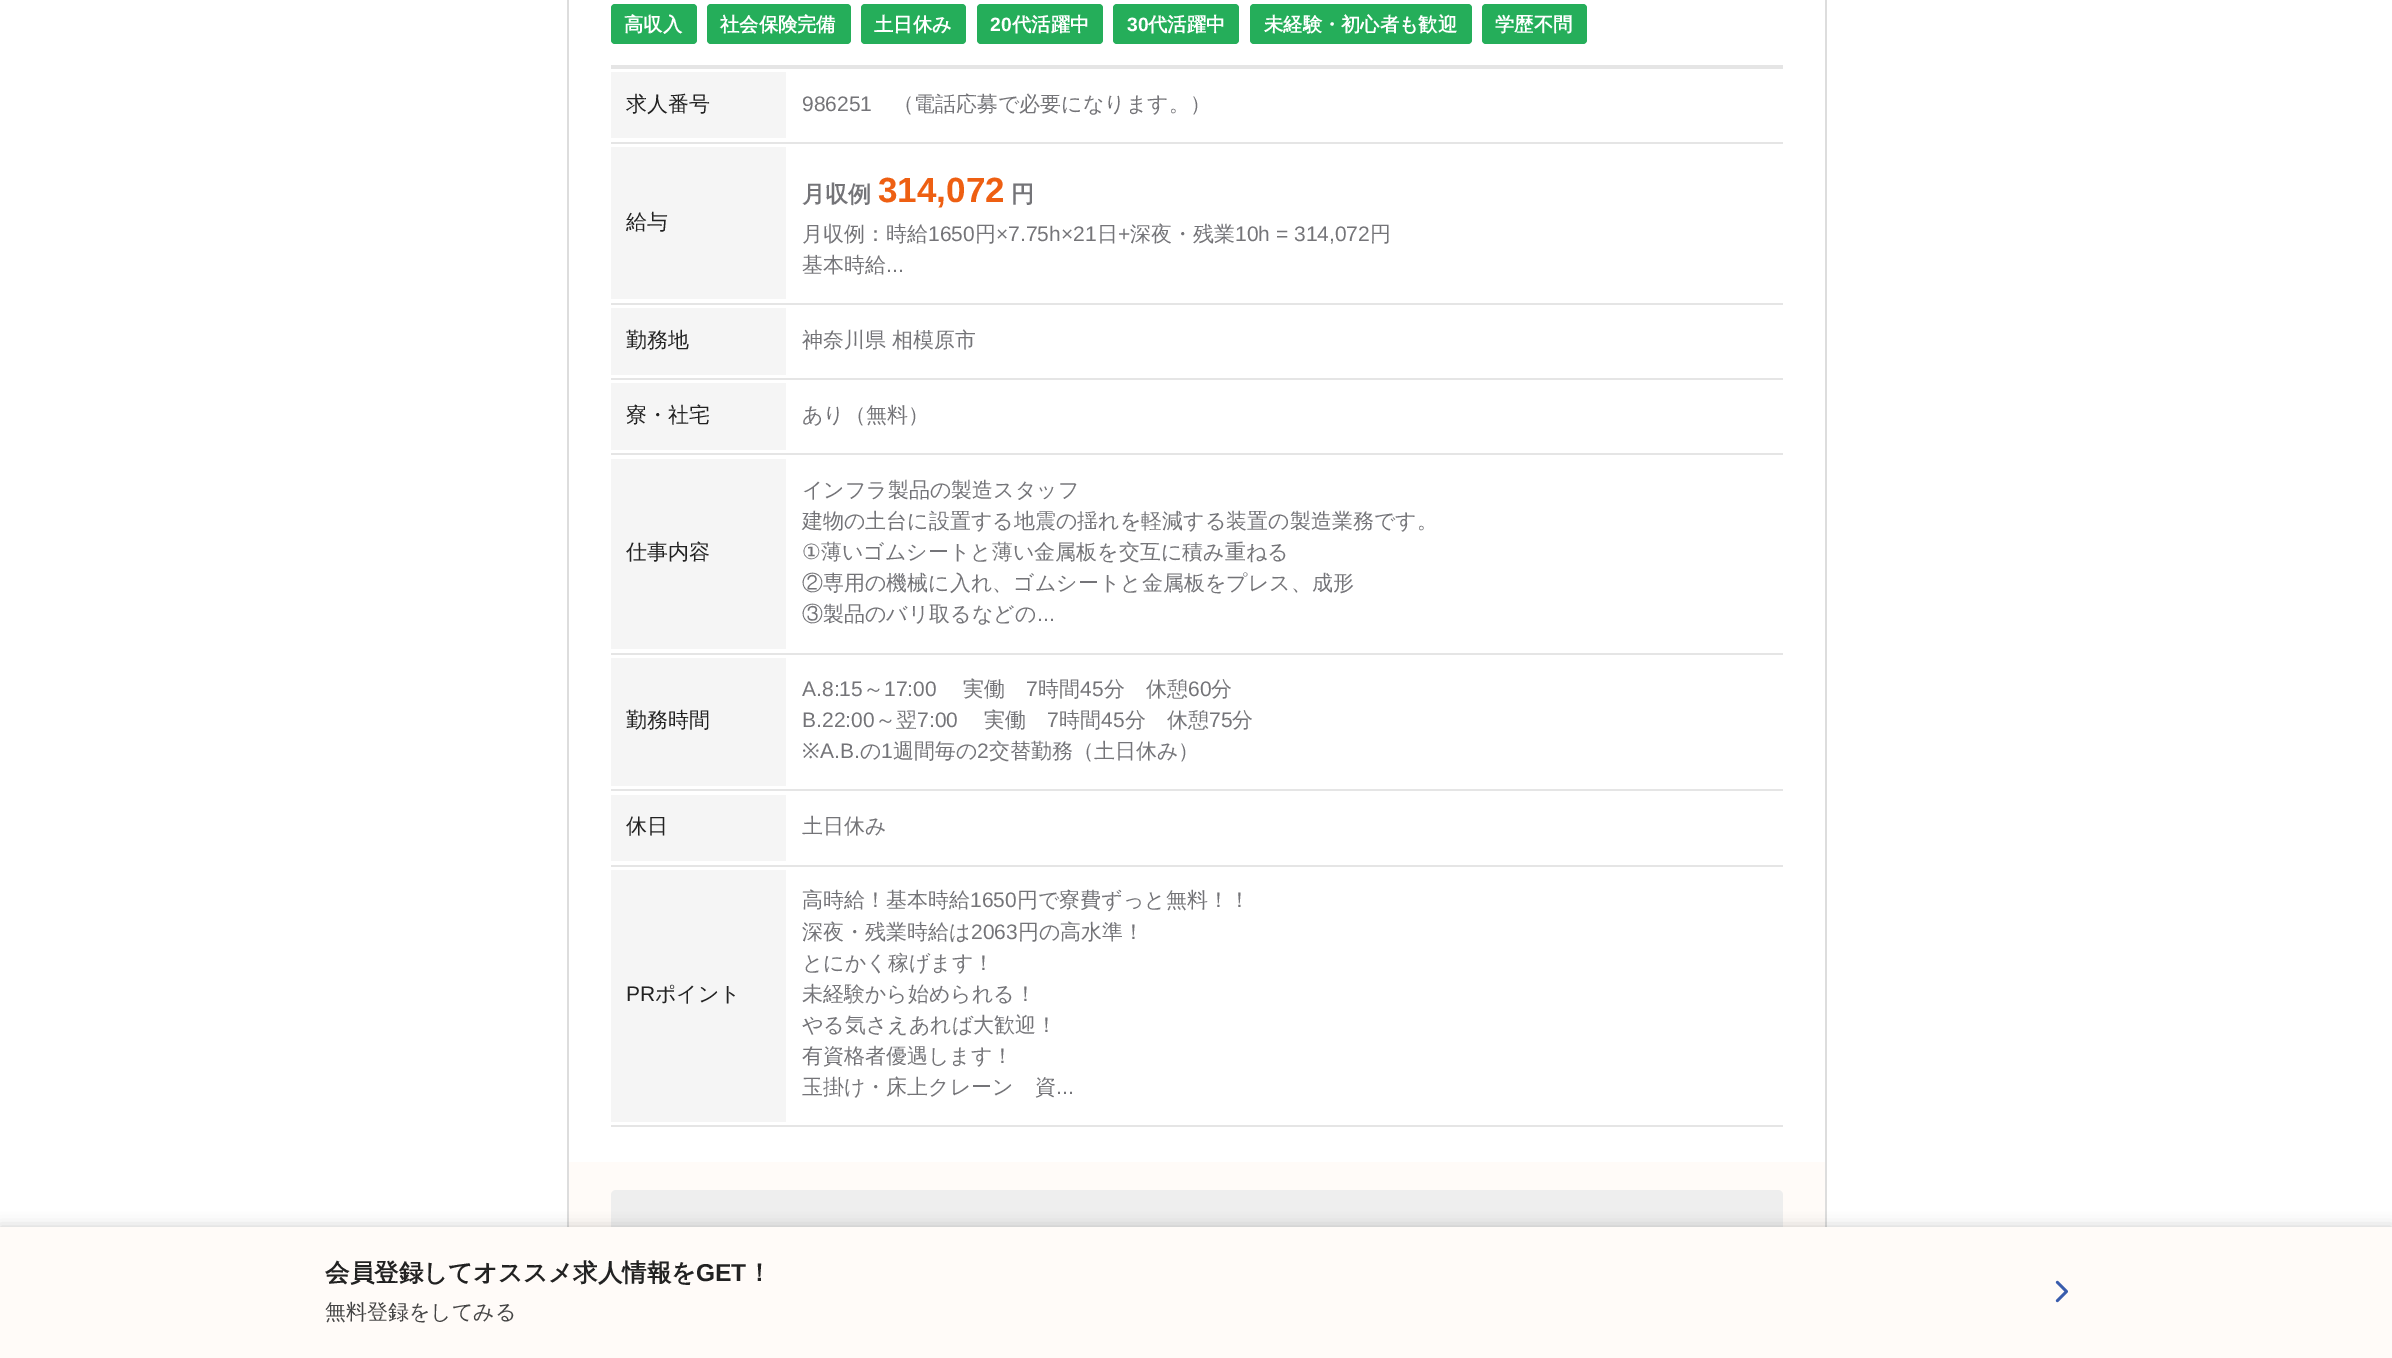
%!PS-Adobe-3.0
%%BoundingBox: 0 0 2392 1358
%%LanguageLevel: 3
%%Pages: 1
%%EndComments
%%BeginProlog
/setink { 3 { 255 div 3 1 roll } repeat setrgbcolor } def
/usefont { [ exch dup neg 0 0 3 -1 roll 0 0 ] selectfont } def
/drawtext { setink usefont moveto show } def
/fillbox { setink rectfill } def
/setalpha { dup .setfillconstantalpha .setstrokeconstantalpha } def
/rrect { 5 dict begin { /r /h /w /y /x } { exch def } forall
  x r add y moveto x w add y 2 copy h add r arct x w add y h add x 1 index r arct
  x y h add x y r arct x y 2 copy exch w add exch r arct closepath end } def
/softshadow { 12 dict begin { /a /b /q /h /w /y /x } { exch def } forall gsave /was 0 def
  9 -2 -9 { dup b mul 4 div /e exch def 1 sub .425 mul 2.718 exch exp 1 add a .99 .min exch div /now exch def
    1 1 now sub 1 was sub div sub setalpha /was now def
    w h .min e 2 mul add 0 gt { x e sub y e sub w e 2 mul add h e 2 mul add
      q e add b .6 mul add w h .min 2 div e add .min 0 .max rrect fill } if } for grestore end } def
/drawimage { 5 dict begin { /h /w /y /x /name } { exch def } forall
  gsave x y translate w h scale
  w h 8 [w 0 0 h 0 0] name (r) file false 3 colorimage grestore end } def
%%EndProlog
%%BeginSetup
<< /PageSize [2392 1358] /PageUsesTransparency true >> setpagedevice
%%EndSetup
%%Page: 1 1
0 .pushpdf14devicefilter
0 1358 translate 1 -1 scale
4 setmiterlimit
0 0 2392 1358 255 255 255 fillbox
221 221 221 setink
1827 -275 moveto 1827 1295 lineto 1825 1293 lineto 1825 -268 lineto closepath fill
567 1295 moveto 567 -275 lineto 569 -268 lineto 569 1293 lineto closepath fill
37 174 90 setink
611 4 86 40 4 rrect fill
(高収入) 624 31 /WenQuanYiZenHei-Bold 19.25 255 255 255 drawtext
37 174 90 setink
707 4 144 40 4 rrect fill
(社会保険完備) 720 31 /WenQuanYiZenHei-Bold 19.25 255 255 255 drawtext
37 174 90 setink
861 4 105 40 4 rrect fill
(土日休み) 874 31 /WenQuanYiZenHei-Bold 19.25 255 255 255 drawtext
37 174 90 setink
977 4 126 40 4 rrect fill
(20) 990 31 /LiberationSans-Bold 19.25 255 255 255 drawtext
(代活躍中) 1012 31 /WenQuanYiZenHei-Bold 19.25 255 255 255 drawtext
37 174 90 setink
1113 4 126 40 4 rrect fill
(30) 1127 31 /LiberationSans-Bold 19.25 255 255 255 drawtext
(代活躍中) 1148 31 /WenQuanYiZenHei-Bold 19.25 255 255 255 drawtext
37 174 90 setink
1250 4 222 40 4 rrect fill
(未経験・初心者も歓迎) 1264 31 /WenQuanYiZenHei-Bold 19.25 255 255 255 drawtext
37 174 90 setink
1482 4 105 40 4 rrect fill
(学歴不問) 1495 31 /WenQuanYiZenHei-Bold 19.25 255 255 255 drawtext
611 65 1172 4 229 229 229 fillbox
611 1125 1172 2 229 229 229 fillbox
611 72 175 66 245 245 245 fillbox
(求人番号) 626 111 /WenQuanYiZenHei-Medium 21 34 34 34 drawtext
(986251) 802 111 /LiberationSans-Regular 21 116 116 120 drawtext
(（電話応募で必要になります。）) 893 111 /WenQuanYiZenHei-Medium 21 116 116 120 drawtext
611 142 1172 2 229 229 229 fillbox
611 147 175 152 245 245 245 fillbox
(給与) 626 229 /WenQuanYiZenHei-Medium 21 34 34 34 drawtext
(月収例) 802 202 /WenQuanYiZenHei-Bold 23 116 116 120 drawtext
(314,072) 878 202 /LiberationSans-Bold 35 238 95 18 drawtext
(円) 1011 202 /WenQuanYiZenHei-Bold 23 116 116 120 drawtext
(月収例：時給) 802 241 /WenQuanYiZenHei-Medium 21 116 116 120 drawtext
(1650) 928 241 /LiberationSans-Regular 21 116 116 120 drawtext
(円) 975 241 /WenQuanYiZenHei-Medium 21 116 116 120 drawtext
(×7.75h×21) 996 241 /LiberationSans-Regular 21 116 116 120 drawtext
(日) 1097 241 /WenQuanYiZenHei-Medium 21 116 116 120 drawtext
(+) 1118 241 /LiberationSans-Regular 21 116 116 120 drawtext
(深夜・残業) 1130 241 /WenQuanYiZenHei-Medium 21 116 116 120 drawtext
(10h = 314,072) 1235 241 /LiberationSans-Regular 21 116 116 120 drawtext
(円) 1370 241 /WenQuanYiZenHei-Medium 21 116 116 120 drawtext
(基本時給) 802 272 /WenQuanYiZenHei-Medium 21 116 116 120 drawtext
(...) 886 272 /LiberationSans-Regular 21 116 116 120 drawtext
611 303 1172 2 229 229 229 fillbox
611 308 175 67 245 245 245 fillbox
(勤務地) 626 347 /WenQuanYiZenHei-Medium 21 34 34 34 drawtext
(神奈川県) 802 347 /WenQuanYiZenHei-Medium 21 116 116 120 drawtext
(相模原市) 892 347 /WenQuanYiZenHei-Medium 21 116 116 120 drawtext
611 378 1172 2 229 229 229 fillbox
611 383 175 67 245 245 245 fillbox
(寮・社宅) 626 422 /WenQuanYiZenHei-Medium 21 34 34 34 drawtext
(あり（無料）) 802 422 /WenQuanYiZenHei-Medium 21 116 116 120 drawtext
611 453 1172 2 229 229 229 fillbox
611 459 175 190 245 245 245 fillbox
(仕事内容) 626 559 /WenQuanYiZenHei-Medium 21 34 34 34 drawtext
(インフラ製品の製造スタッフ) 802 497 /WenQuanYiZenHei-Medium 21 116 116 120 drawtext
(建物の土台に設置する地震の揺れを軽減する装置の製造業務です。) 802 528 /WenQuanYiZenHei-Medium 21 116 116 120 drawtext
(①) 802 559 /DejaVuSans-Regular 21 116 116 120 drawtext
(薄いゴムシートと薄い金属板を交互に積み重ねる) 821 559 /WenQuanYiZenHei-Medium 21 116 116 120 drawtext
(②専用の機械に入れ、ゴムシートと金属板をプレス、成形) 802 590 /WenQuanYiZenHei-Medium 21 116 116 120 drawtext
(③製品のバリ取るなどの) 802 621 /WenQuanYiZenHei-Medium 21 116 116 120 drawtext
(...) 1037 621 /LiberationSans-Regular 21 116 116 120 drawtext
611 653 1172 2 229 229 229 fillbox
611 658 175 128 245 245 245 fillbox
(勤務時間) 626 727 /WenQuanYiZenHei-Medium 21 34 34 34 drawtext
(A.8:15) 802 696 /LiberationSans-Regular 21 116 116 120 drawtext
(～) 863 696 /WenQuanYiZenHei-Medium 21 116 116 120 drawtext
(17:00) 884 696 /LiberationSans-Regular 21 116 116 120 drawtext
(実働) 963 696 /WenQuanYiZenHei-Medium 21 116 116 120 drawtext
(7) 1026 696 /LiberationSans-Regular 21 116 116 120 drawtext
(時間) 1038 696 /WenQuanYiZenHei-Medium 21 116 116 120 drawtext
(45) 1080 696 /LiberationSans-Regular 21 116 116 120 drawtext
(分　休憩) 1104 696 /WenQuanYiZenHei-Medium 21 116 116 120 drawtext
(60) 1188 696 /LiberationSans-Regular 21 116 116 120 drawtext
(分) 1211 696 /WenQuanYiZenHei-Medium 21 116 116 120 drawtext
(B.22:00) 802 727 /LiberationSans-Regular 21 116 116 120 drawtext
(～翌) 875 727 /WenQuanYiZenHei-Medium 21 116 116 120 drawtext
(7:00) 917 727 /LiberationSans-Regular 21 116 116 120 drawtext
(実働) 984 727 /WenQuanYiZenHei-Medium 21 116 116 120 drawtext
(7) 1047 727 /LiberationSans-Regular 21 116 116 120 drawtext
(時間) 1059 727 /WenQuanYiZenHei-Medium 21 116 116 120 drawtext
(45) 1101 727 /LiberationSans-Regular 21 116 116 120 drawtext
(分　休憩) 1125 727 /WenQuanYiZenHei-Medium 21 116 116 120 drawtext
(75) 1209 727 /LiberationSans-Regular 21 116 116 120 drawtext
(分) 1232 727 /WenQuanYiZenHei-Medium 21 116 116 120 drawtext
(※) 802 758 /NotoSans-Regular 21 116 116 120 drawtext
(A.B.) 820 758 /LiberationSans-Regular 21 116 116 120 drawtext
(の) 860 758 /WenQuanYiZenHei-Medium 21 116 116 120 drawtext
(1) 881 758 /LiberationSans-Regular 21 116 116 120 drawtext
(週間毎の) 893 758 /WenQuanYiZenHei-Medium 21 116 116 120 drawtext
(2) 977 758 /LiberationSans-Regular 21 116 116 120 drawtext
(交替勤務（土日休み）) 989 758 /WenQuanYiZenHei-Medium 21 116 116 120 drawtext
611 789 1172 2 229 229 229 fillbox
611 795 175 66 245 245 245 fillbox
(休日) 626 833 /WenQuanYiZenHei-Medium 21 34 34 34 drawtext
(土日休み) 802 833 /WenQuanYiZenHei-Medium 21 116 116 120 drawtext
611 865 1172 2 229 229 229 fillbox
611 870 175 252 245 245 245 fillbox
(PR) 626 1001 /LiberationSans-Regular 21 34 34 34 drawtext
(ポイント) 655 1001 /WenQuanYiZenHei-Medium 21 34 34 34 drawtext
(高時給！基本時給) 802 907 /WenQuanYiZenHei-Medium 21 116 116 120 drawtext
(1650) 970 907 /LiberationSans-Regular 21 116 116 120 drawtext
(円で寮費ずっと無料！！) 1017 907 /WenQuanYiZenHei-Medium 21 116 116 120 drawtext
(深夜・残業時給は) 802 939 /WenQuanYiZenHei-Medium 21 116 116 120 drawtext
(2063) 971 939 /LiberationSans-Regular 21 116 116 120 drawtext
(円の高水準！) 1018 939 /WenQuanYiZenHei-Medium 21 116 116 120 drawtext
(とにかく稼げます！) 802 970 /WenQuanYiZenHei-Medium 21 116 116 120 drawtext
(未経験から始められる！) 802 1001 /WenQuanYiZenHei-Medium 21 116 116 120 drawtext
(やる気さえあれば大歓迎！) 802 1032 /WenQuanYiZenHei-Medium 21 116 116 120 drawtext
(有資格者優遇します！) 802 1063 /WenQuanYiZenHei-Medium 21 116 116 120 drawtext
(玉掛け・床上クレーン　資) 802 1094 /WenQuanYiZenHei-Medium 21 116 116 120 drawtext
(...) 1056 1094 /LiberationSans-Regular 21 116 116 120 drawtext
569 1162 1256 65 255 251 248 fillbox
238 238 238 setink
611 1190 1172 75 5 rrect fill
0 0 0 setink
0 1227 2392 131 0 7 0.2 softshadow
0 1227 2392 131 255 251 248 fillbox
(会員登録してオススメ求人情報を) 325 1281 /WenQuanYiZenHei-Bold 24.5 34 34 34 drawtext
(GET) 696 1281 /LiberationSans-Bold 24.5 34 34 34 drawtext
(！) 747 1281 /WenQuanYiZenHei-Bold 24.5 34 34 34 drawtext
(無料登録をしてみる) 325 1319 /WenQuanYiZenHei-Medium 21 69 69 69 drawtext
(assets/img1.rgb) 2055 1280 13 23 drawimage
.poppdf14devicefilter showpage
%%EOF
